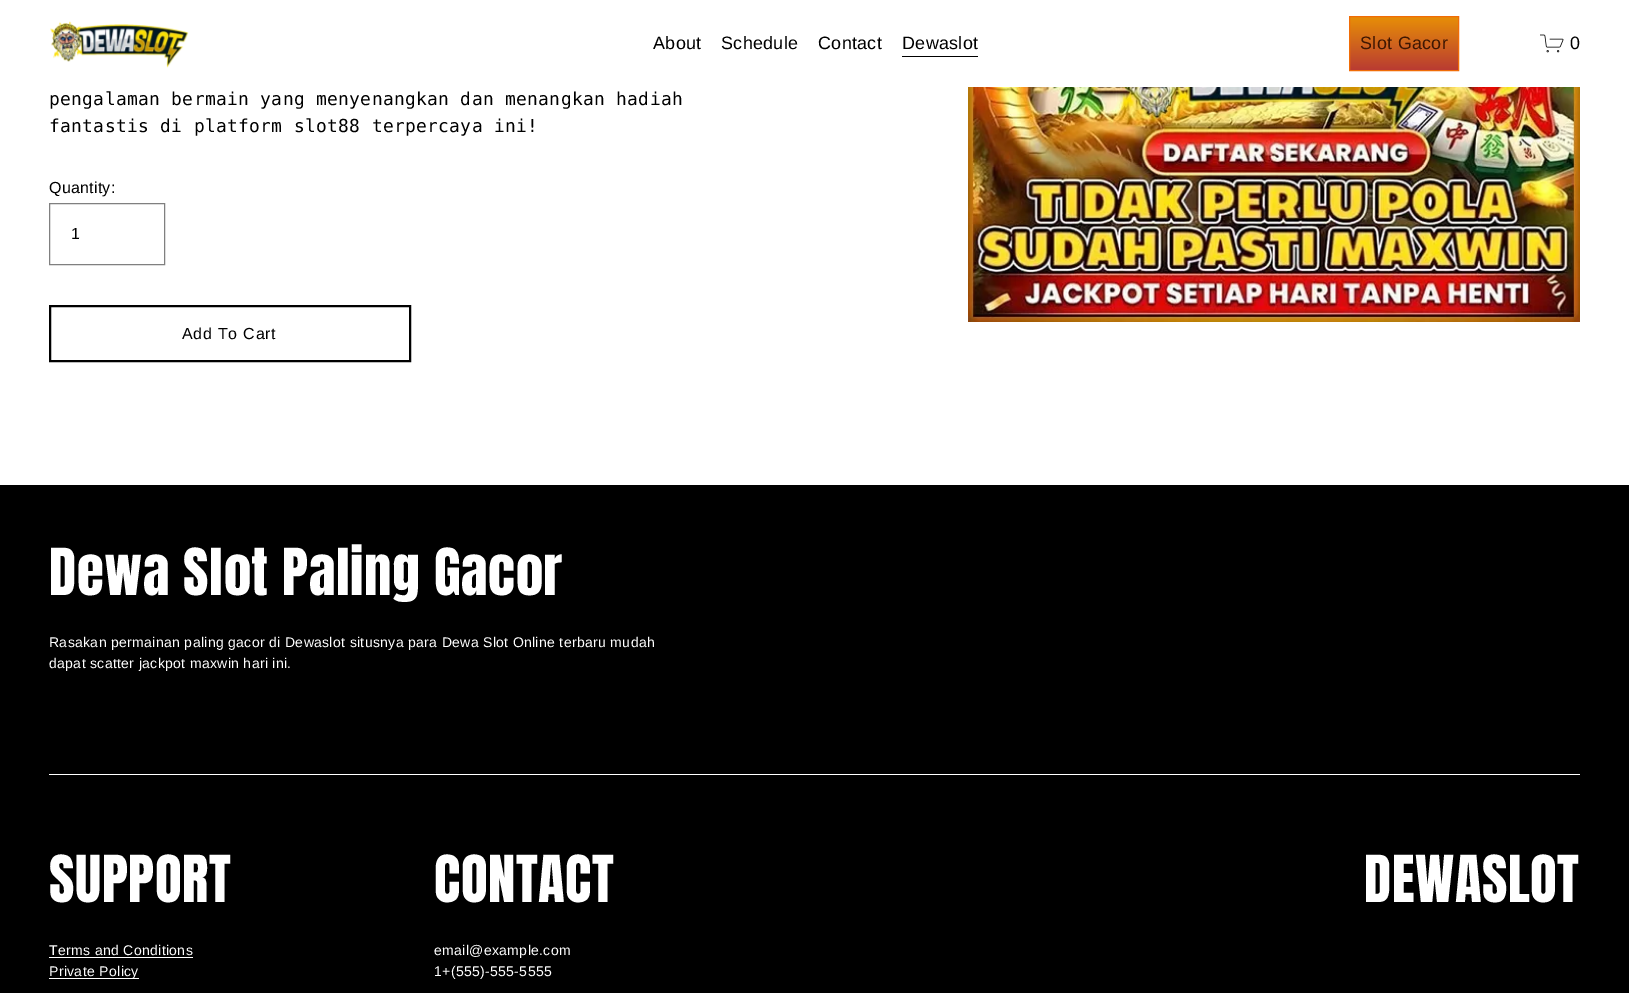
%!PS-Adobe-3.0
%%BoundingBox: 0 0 1629 993
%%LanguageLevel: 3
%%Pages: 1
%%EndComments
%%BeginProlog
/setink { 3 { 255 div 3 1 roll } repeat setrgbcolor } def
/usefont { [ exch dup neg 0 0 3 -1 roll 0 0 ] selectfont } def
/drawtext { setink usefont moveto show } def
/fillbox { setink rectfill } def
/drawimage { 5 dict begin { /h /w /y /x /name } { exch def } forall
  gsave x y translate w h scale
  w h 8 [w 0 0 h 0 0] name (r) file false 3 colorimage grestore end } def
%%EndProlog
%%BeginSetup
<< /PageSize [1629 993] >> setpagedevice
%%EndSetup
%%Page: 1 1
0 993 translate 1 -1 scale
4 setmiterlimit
0 0 1629 993 255 255 255 fillbox
(assets/img1.rgb) 50 21 139 47 drawimage
/LiberationSans-Regular 17.9 usefont
0 0 0 setink
653 49 moveto 0.35 0 (About) ashow
721 49 moveto 0.35 0 (Schedule) ashow
818 49 moveto 0.35 0 (Contact) ashow
902 56 76 1 0 0 0 fillbox
902 49 moveto 0.35 0 (Dewaslot) ashow
gsave 1350 17 moveto 1458 17 lineto 1458 70 lineto 1350 70 lineto closepath clip newpath
<< /ShadingType 2 /ColorSpace /DeviceRGB /Coords [1404 17 1404 70] /Extend [true true] /Function << /FunctionType 2 /Domain [0 1] /C0 [0.906 0.557 0.027] /C1 [0.725 0.231 0.196] /N 1 >> >> shfill grestore
240 108 7 setink
1349.5 16.5 109 54 rectstroke
63 23 2 setink
1360 49 moveto 0.35 0 (Slot Gacor) ashow
(assets/img2.rgb) 1540 34 24 19 drawimage
0 0 0 setink
1570 49 moveto 0.35 0 (0) ashow
/DejaVuSansMono-Regular 17.9 usefont
49 105 moveto 0.35 0 (pengalaman bermain yang menyenangkan dan menangkan hadiah) ashow
49 132 moveto 0.35 0 (fantastis di platform slot88 terpercaya ini!) ashow
/LiberationSans-Regular 16 usefont
49 193 moveto 0.25 0 (Quantity:) ashow
128 128 128 setink
49.5 203.5 115 61 rectstroke
(1) 71 239 /LiberationSans-Regular 16 0 0 0 drawtext
2 setlinewidth
50 306 360 55 rectstroke
182 339 moveto 0.75 0 (Add To Cart) ashow
(assets/img3.rgb) 968 87 612 235 drawimage
0 485 1629 508 0 0 0 fillbox
/Anton-Regular 55 usefont
255 255 255 setink
49 595 moveto 0.55 0 (Dewa Slot Paling Gacor) ashow
/LiberationSans-Regular 14 usefont
49 647 moveto 0.35 0 (Rasakan permainan paling gacor di Dewaslot situsnya para Dewa Slot Online terbaru mudah) ashow
49 668 moveto 0.35 0 (dapat scatter jackpot maxwin hari ini.) ashow
49 774 1531 1 255 255 255 fillbox
/Anton-Regular 55 usefont
49 902 moveto 0.55 0 (SUPPORT) ashow
/LiberationSans-Regular 14 usefont
49 955 moveto 0.35 0 (Terms and Conditions) ashow
49 957 144 1 255 255 255 fillbox
49 978 90 1 255 255 255 fillbox
49 976 moveto 0.35 0 (Private Policy) ashow
/Anton-Regular 55 usefont
434 902 moveto 0.55 0 (CONTACT) ashow
/LiberationSans-Regular 14 usefont
434 955 moveto 0.35 0 (email@example.com) ashow
434 976 moveto 0.35 0 (1+\(555\)-555-5555) ashow
/Anton-Regular 55 usefont
1364 902 moveto 0.55 0 (DEWASLOT) ashow
showpage
%%EOF
